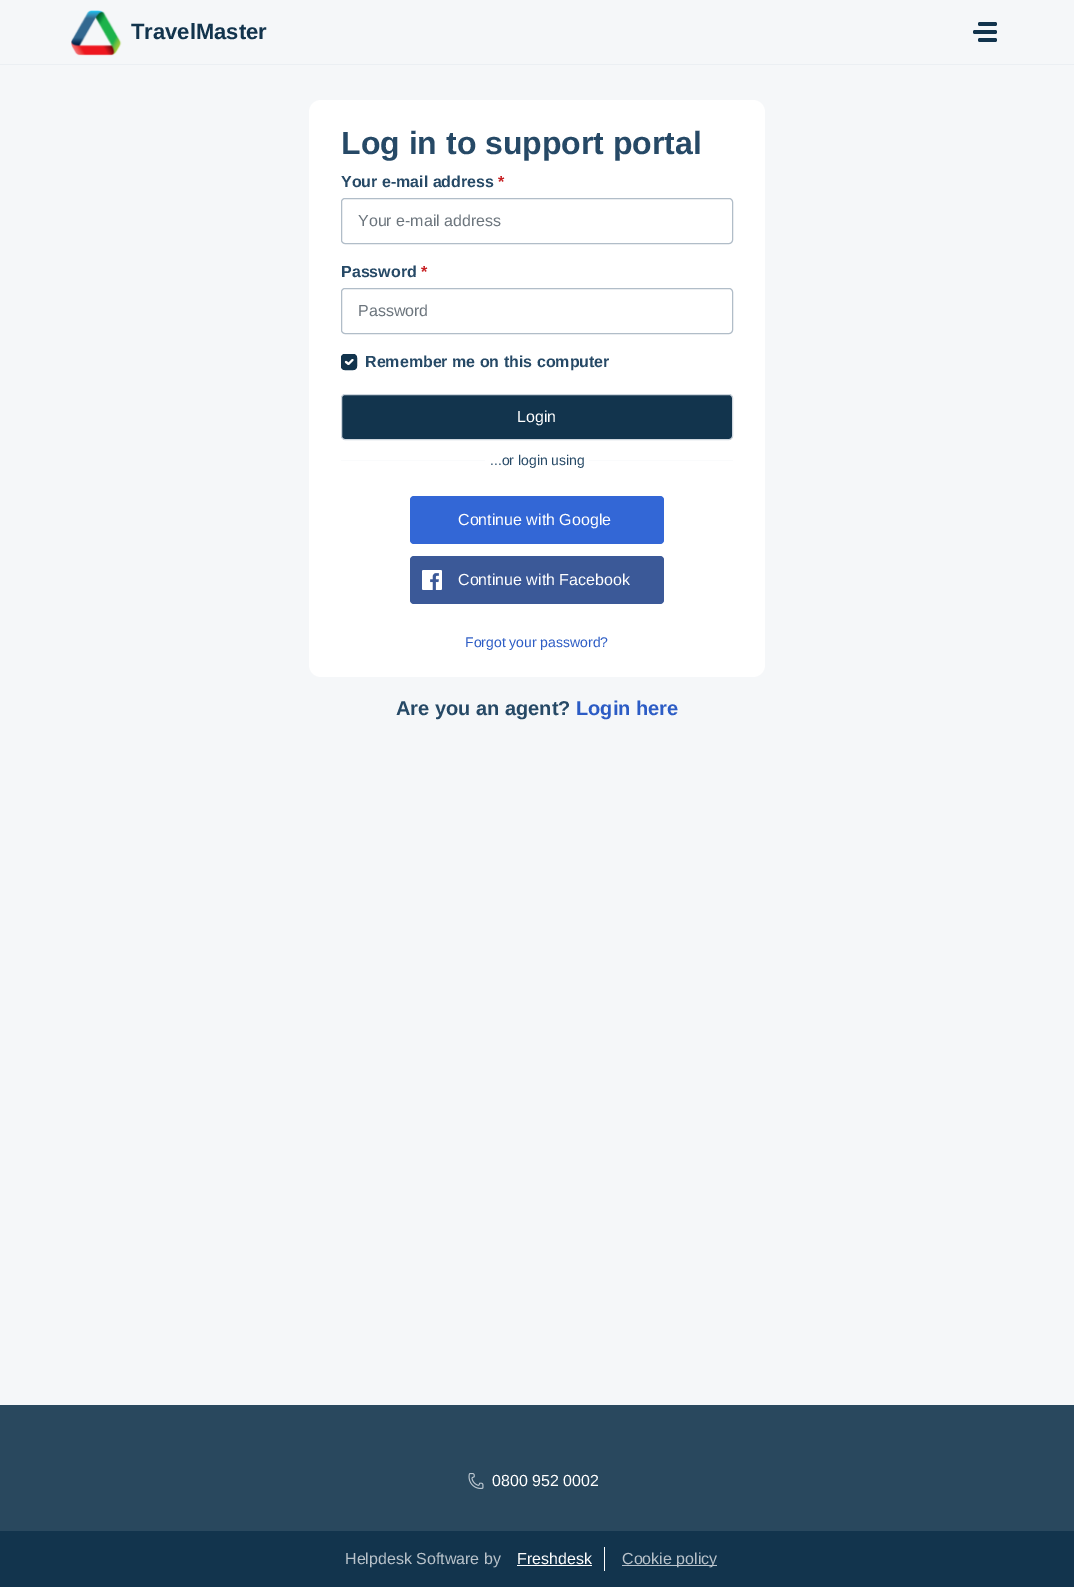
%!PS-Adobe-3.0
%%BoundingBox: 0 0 1074 1587
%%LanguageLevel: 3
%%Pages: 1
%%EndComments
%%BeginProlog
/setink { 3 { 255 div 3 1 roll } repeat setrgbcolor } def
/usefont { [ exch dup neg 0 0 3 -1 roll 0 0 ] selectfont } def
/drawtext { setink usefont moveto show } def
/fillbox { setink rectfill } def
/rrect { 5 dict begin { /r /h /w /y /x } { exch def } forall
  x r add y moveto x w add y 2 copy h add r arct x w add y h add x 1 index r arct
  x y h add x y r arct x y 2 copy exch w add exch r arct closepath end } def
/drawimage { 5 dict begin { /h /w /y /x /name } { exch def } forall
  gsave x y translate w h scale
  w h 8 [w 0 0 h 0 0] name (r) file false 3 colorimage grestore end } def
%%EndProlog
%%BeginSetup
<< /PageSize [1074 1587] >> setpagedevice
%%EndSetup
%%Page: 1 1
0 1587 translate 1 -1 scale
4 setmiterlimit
0 0 1074 1587 245 247 249 fillbox
0 64 1074 1 235 239 243 fillbox
(assets/img1.rgb) 71 10 51 46 drawimage
(TravelMaster) 131 39 /LiberationSans-Bold 22 18 52 77 drawtext
978 22 19 4 2 rrect fill
973 30 24 4 2 rrect fill
978 38 19 4 2 rrect fill
255 255 255 setink
309 100 456 577 12 rrect fill
(Log in to support portal) 341 154 /LiberationSans-Bold 32 38 73 102 drawtext
(Your e-mail address) 341 187 /LiberationSans-Bold 16 38 73 102 drawtext
(*) 498 187 /LiberationSans-Bold 16 200 33 36 drawtext
177 189 200 setink
341.5 198.5 391 45 3.5 rrect stroke
(Your e-mail address) 358 226 /LiberationSans-Regular 16 108 117 125 drawtext
(Password) 341 277 /LiberationSans-Bold 16 38 73 102 drawtext
(*) 421 277 /LiberationSans-Bold 16 200 33 36 drawtext
177 189 200 setink
341.5 288.5 391 45 3.5 rrect stroke
(Password) 358 316 /LiberationSans-Regular 16 108 117 125 drawtext
18 52 77 setink
341 354 16 16 4 rrect fill
255 255 255 setink
2.1 setlinewidth
1 setlinecap
1 setlinejoin
346 362 moveto 348.5 364 lineto 352.5 360 lineto stroke
18 52 77 setink
1 setlinewidth
0 setlinecap
0 setlinejoin
341.5 354.5 15 15 3.5 rrect stroke
(Remember me on this computer) 365 367 /LiberationSans-Bold 16 38 73 102 drawtext
18 52 77 setink
341.5 394.5 391 45 3.5 rrect gsave fill grestore
207 215 223 setink
stroke
(Login) 517 422 /LiberationSans-Regular 16 255 255 255 drawtext
341 460 392 1 250 251 252 fillbox
485 460 104 1 255 255 255 fillbox
(...or login using) 490 465 /LiberationSans-Regular 14 38 73 102 drawtext
51 103 214 setink
410 496 254 48 4 rrect fill
(Continue with Google) 458 525 /LiberationSans-Regular 16 255 255 255 drawtext
59 89 152 setink
410 556 254 48 4 rrect fill
(assets/img2.rgb) 422 570 20 20 drawimage
(Continue with Facebook) 458 585 /LiberationSans-Regular 16 255 255 255 drawtext
(Forgot your password?) 465 647 /LiberationSans-Regular 14 44 92 197 drawtext
(Are you an agent?) 396 715 /LiberationSans-Bold 20 38 73 102 drawtext
(Login here) 576 715 /LiberationSans-Bold 20 44 92 197 drawtext
0 1405 1074 126 41 72 94 fillbox
(assets/img3.rgb) 468 1473 16 16 drawimage
(0800 952 0002) 492 1486 /LiberationSans-Regular 16 255 255 255 drawtext
0 1531 1074 56 18 52 77 fillbox
(Helpdesk Software by) 345 1564 /LiberationSans-Regular 16 184 194 202 drawtext
604 1547 1 24 255 255 255 fillbox
(Freshdesk) 517 1564 /LiberationSans-Regular 16 255 255 255 drawtext
517 1565 75 1 255 255 255 fillbox
622 1565 95 1 184 194 202 fillbox
(Cookie policy) 622 1564 /LiberationSans-Regular 16 184 194 202 drawtext
showpage
%%EOF
